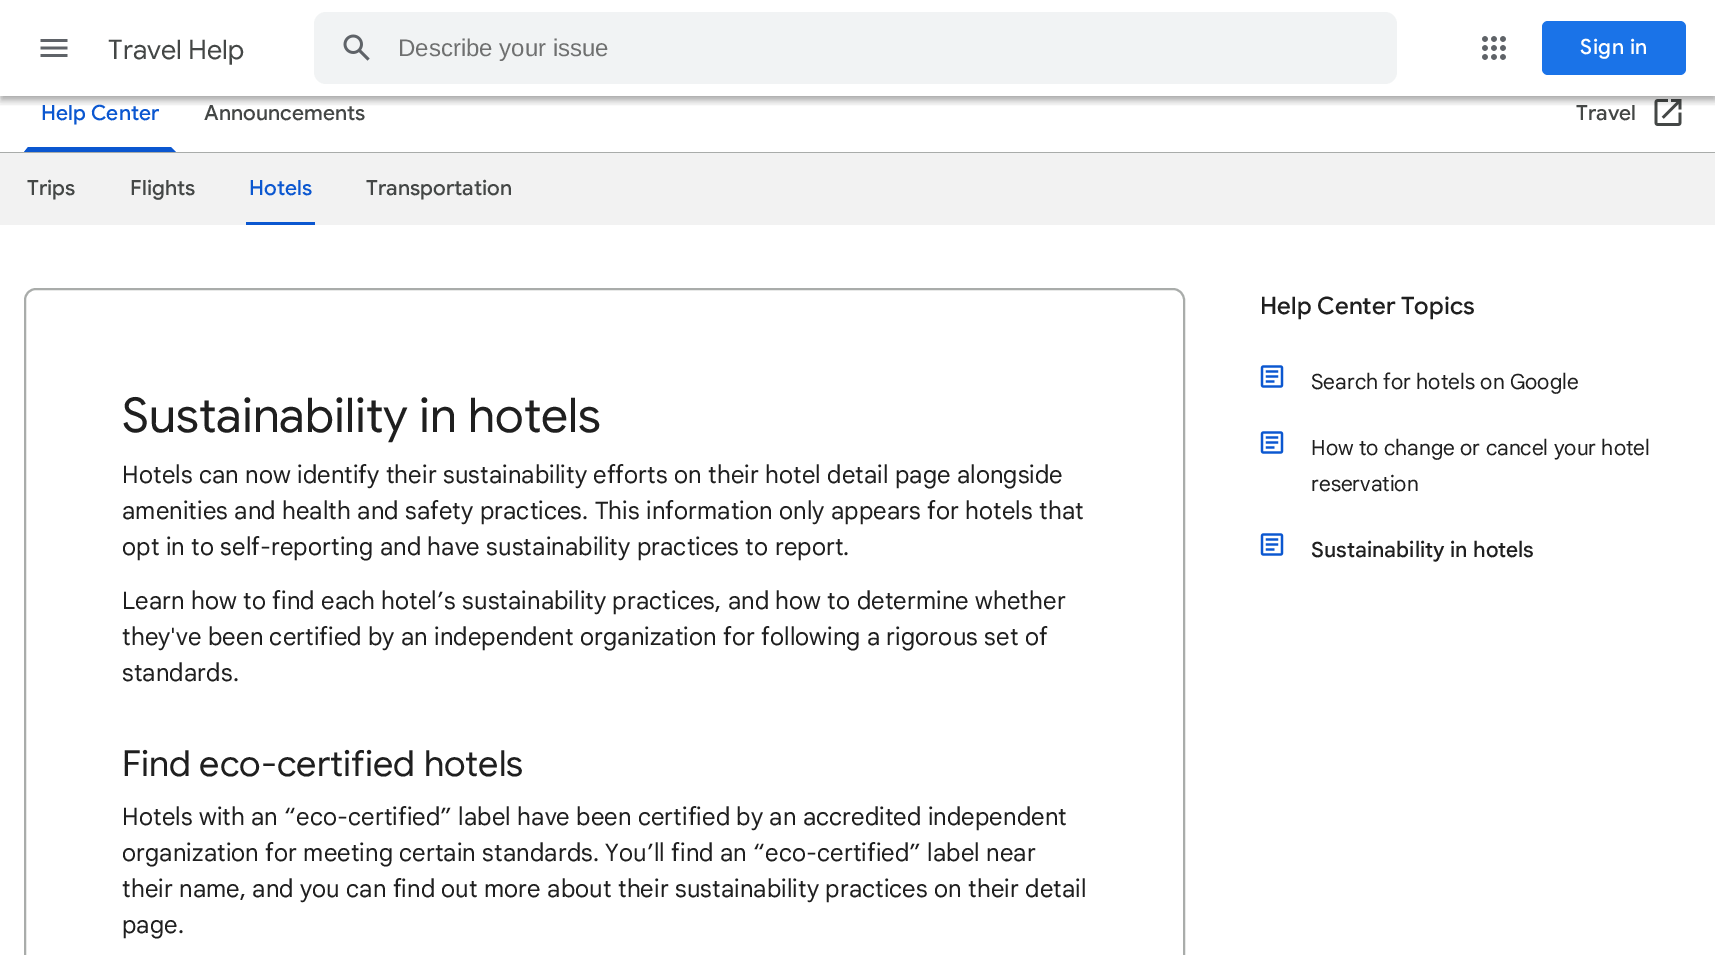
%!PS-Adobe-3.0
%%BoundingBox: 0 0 1715 955
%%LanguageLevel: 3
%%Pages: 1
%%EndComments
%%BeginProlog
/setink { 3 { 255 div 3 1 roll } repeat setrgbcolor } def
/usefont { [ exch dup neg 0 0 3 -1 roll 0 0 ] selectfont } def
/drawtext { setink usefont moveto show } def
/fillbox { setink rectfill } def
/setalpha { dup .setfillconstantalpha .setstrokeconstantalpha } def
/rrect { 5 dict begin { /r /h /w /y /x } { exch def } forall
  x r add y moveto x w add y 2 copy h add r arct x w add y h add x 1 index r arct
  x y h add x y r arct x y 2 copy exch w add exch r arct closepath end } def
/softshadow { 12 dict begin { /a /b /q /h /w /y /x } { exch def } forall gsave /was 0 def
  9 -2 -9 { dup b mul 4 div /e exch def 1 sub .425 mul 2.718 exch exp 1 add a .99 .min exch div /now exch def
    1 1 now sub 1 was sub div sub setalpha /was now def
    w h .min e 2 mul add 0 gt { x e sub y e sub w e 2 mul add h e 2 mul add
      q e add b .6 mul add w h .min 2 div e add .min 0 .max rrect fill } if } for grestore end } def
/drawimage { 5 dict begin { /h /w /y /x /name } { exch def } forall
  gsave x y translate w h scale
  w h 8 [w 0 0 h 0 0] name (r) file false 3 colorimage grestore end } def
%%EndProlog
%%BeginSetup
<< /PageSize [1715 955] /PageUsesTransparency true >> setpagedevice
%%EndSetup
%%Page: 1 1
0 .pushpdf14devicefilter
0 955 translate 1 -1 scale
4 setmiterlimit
0 0 1715 955 255 255 255 fillbox
(assets/img4.rgb) 1654 99 28 27 drawimage
gsave
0 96 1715 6 rectclip
0 0 0 setink
2 5 1713 93 0 3 0.2 softshadow
grestore
gsave
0 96 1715 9 rectclip
0 0 0 setink
0 2 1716 96 0 7.5 0.12 softshadow
grestore
gsave
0 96 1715 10 rectclip
0 0 0 setink
0 6 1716 96 0 4 0.14 softshadow
grestore
(assets/img1.rgb) 40 39 28 18 drawimage
(Travel Help) 108 59 /GoogleSans-Regular 27 68 71 70 drawtext
241 243 244 setink
314 12 1083 72 12 rrect fill
(assets/img2.rgb) 343 34 27 27 drawimage
(Describe your issue) 398 56 /LiberationSans-Regular 24 111 112 112 drawtext
(assets/img3.rgb) 1482 36 24 24 drawimage
26 115 232 setink
1542 21 144 54 6 rrect fill
/GoogleSans-Medium 21 usefont
255 255 255 setink
1580 54 moveto 0.5 0 (Sign in) ashow
0 152 1715 1 169 172 170 fillbox
11 87 208 setink
176 152 moveto 24 152 lineto 28 147 lineto 171 147 lineto closepath fill
(Help Center) 41 120 /GoogleSans-Medium 21 11 87 208 drawtext
(Announcements) 204 120 /GoogleSans-Medium 21 68 71 70 drawtext
(Travel) 1576 120 /GoogleSans-Medium 21 68 71 70 drawtext
0 153 1715 72 242 242 242 fillbox
(Trips) 27 195 /GoogleSans-Medium 21 68 71 70 drawtext
(Flights) 130 195 /GoogleSans-Medium 21 68 71 70 drawtext
246 222 69 3 11 87 208 fillbox
(Hotels) 249 195 /GoogleSans-Medium 21 11 87 208 drawtext
(Transportation) 366 195 /GoogleSans-Medium 21 68 71 70 drawtext
169 172 170 setink
2 setlinewidth
25 289 1159 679 11 rrect stroke
(Sustainability in hotels) 122 432 /GoogleSans-Regular 48 31 31 31 drawtext
/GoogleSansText-Regular 24 usefont
122 483 moveto 0.12 0 (Hotels can now identify their sustainability efforts on their hotel detail page alongside) ashow
122 519 moveto 0.12 0 (amenities and health and safety practices. This information only appears for hotels that) ashow
122 555 moveto 0.12 0 (opt in to self-reporting and have sustainability practices to report.) ashow
122 609 moveto 0.12 0 (Learn how to find each hotel’s sustainability practices, and how to determine whether) ashow
122 645 moveto 0.12 0 (they've been certified by an independent organization for following a rigorous set of) ashow
122 681 moveto 0.12 0 (standards.) ashow
(Find eco-certified hotels) 122 776 /GoogleSans-Regular 36 31 31 31 drawtext
/GoogleSansText-Regular 24 usefont
122 825 moveto 0.12 0 (Hotels with an “eco-certified” label have been certified by an accredited independent) ashow
122 861 moveto 0.12 0 (organization for meeting certain standards. You’ll find an “eco-certified” label near) ashow
122 897 moveto 0.12 0 (their name, and you can find out more about their sustainability practices on their detail) ashow
122 933 moveto 0.12 0 (page.) ashow
(Help Center Topics) 1260 314 /GoogleSans-Medium 24 31 31 31 drawtext
(assets/img5.rgb) 1260 365 24 23 drawimage
(Search for hotels on Google) 1311 389 /GoogleSansText-Regular 21 31 31 31 drawtext
(assets/img5.rgb) 1260 431 24 23 drawimage
(How to change or cancel your hotel) 1311 455 /GoogleSansText-Regular 21 31 31 31 drawtext
(reservation) 1311 491 /GoogleSansText-Regular 21 31 31 31 drawtext
(assets/img5.rgb) 1260 533 24 23 drawimage
(Sustainability in hotels) 1311 557 /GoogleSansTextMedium-Medium 21 31 31 31 drawtext
.poppdf14devicefilter showpage
%%EOF
